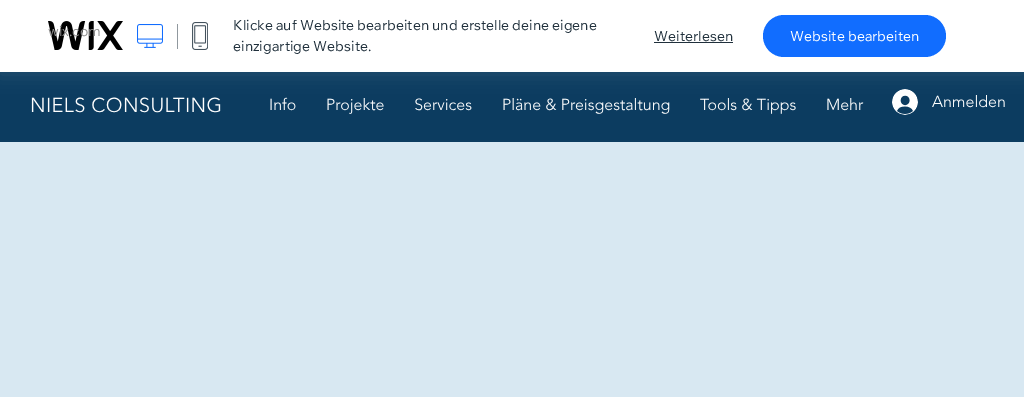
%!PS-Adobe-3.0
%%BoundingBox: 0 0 1024 397
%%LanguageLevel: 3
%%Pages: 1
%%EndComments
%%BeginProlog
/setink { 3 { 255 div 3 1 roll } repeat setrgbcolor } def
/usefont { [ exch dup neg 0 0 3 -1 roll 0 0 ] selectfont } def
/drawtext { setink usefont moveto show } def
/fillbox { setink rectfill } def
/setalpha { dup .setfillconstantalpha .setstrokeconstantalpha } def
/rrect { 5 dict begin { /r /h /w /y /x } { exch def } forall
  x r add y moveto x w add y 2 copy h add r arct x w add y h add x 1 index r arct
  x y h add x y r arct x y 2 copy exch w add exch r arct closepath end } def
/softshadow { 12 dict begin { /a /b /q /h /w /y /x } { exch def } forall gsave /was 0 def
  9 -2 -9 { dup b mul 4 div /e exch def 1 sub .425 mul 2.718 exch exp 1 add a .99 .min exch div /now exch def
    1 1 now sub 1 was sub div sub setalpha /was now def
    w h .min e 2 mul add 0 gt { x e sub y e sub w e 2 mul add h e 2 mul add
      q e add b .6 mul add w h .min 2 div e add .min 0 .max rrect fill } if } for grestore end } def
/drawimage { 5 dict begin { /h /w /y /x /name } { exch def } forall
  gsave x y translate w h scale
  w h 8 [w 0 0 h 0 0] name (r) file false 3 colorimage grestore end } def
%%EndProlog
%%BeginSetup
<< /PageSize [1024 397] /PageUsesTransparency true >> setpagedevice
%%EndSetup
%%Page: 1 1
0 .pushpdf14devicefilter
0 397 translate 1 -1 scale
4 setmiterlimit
0 0 1024 397 255 255 255 fillbox
(assets/img4.rgb) 0 72 1024 325 drawimage
129 162 182 setink
0 2 1024 72 0 9 0.2 softshadow
0 0 1024 72 255 255 255 fillbox
(assets/img1.rgb) 48 21 75 29 drawimage
(wix.com) 48 36 /WixMadeforText-Regular 14 143 143 143 drawtext
(assets/img2.rgb) 137 24 26 24 drawimage
177 24 1 25 144 152 158 fillbox
(assets/img3.rgb) 192 22 16 28 drawimage
(Klicke auf Website bearbeiten und erstelle deine eigene) 233 30 /WixMadeforText-Regular 14 32 48 60 drawtext
(einzigartige Website.) 233 51 /WixMadeforText-Regular 14 32 48 60 drawtext
(Weiterlesen) 654 41 /WixMadeforText-Regular 14 32 48 60 drawtext
654 42 79 1 32 48 60 fillbox
17 109 255 setink
763 15 183 42 21 rrect fill
(Website bearbeiten) 790 41 /WixMadeforText-Regular 14 255 255 255 drawtext
.poppdf14devicefilter showpage
%%EOF
